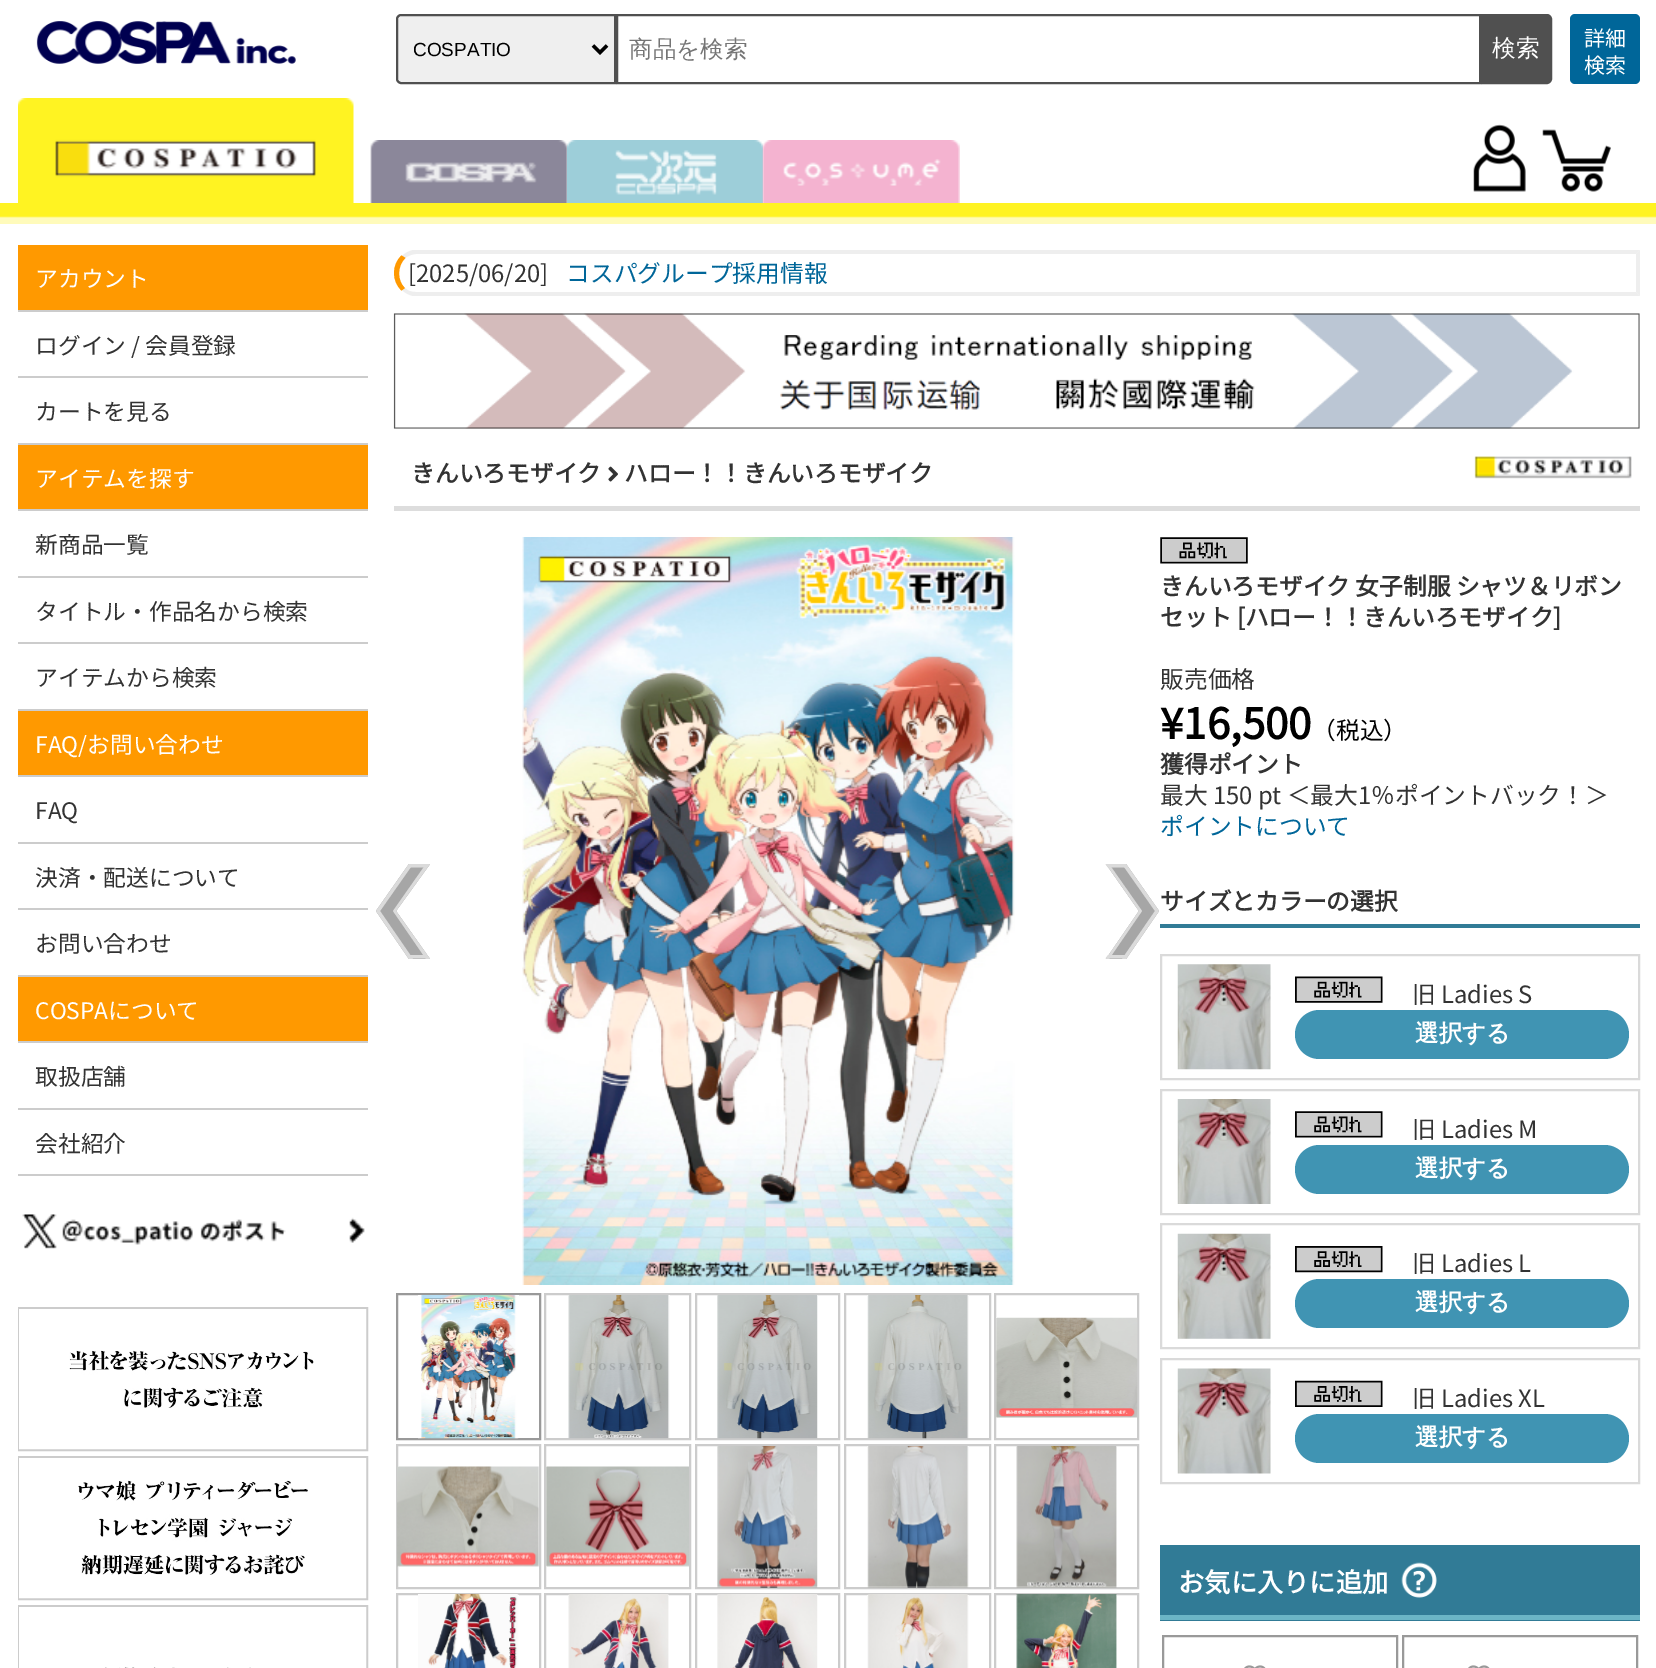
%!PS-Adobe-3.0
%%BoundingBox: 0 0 1656 1668
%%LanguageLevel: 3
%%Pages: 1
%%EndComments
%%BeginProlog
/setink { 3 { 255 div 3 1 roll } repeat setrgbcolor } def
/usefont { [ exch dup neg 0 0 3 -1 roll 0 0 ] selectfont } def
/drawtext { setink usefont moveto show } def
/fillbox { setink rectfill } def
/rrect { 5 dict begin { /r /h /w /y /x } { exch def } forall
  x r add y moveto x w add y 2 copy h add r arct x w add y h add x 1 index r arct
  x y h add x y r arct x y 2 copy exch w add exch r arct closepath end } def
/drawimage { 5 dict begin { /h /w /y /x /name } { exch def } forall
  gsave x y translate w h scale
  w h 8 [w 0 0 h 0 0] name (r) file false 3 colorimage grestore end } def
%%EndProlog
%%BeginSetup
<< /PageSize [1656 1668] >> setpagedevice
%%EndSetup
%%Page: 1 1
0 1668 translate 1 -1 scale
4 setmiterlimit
0 0 1656 1668 255 255 255 fillbox
(assets/img1.rgb) 36 21 260 43 drawimage
239 239 239 setink
401 15 moveto 615 15 lineto 615 83 lineto 401 83 lineto 399 83 397 81 397 79 curveto 397 19 lineto 397 17 399 15 401 15 curveto closepath gsave fill grestore
80 80 80 setink
2 setlinewidth
stroke
0 0 0 setink
3.5 setlinewidth
593 45.5 moveto 600 52.5 lineto 607 45.5 lineto stroke
(COSPATIO) 413 56 /LiberationSans-Regular 19 0 0 0 drawtext
80 80 80 setink
2 setlinewidth
617 15 863 68 rectstroke
(商品を検索) 629 57 /WenQuanYiZenHei-Medium 23.5 117 117 117 drawtext
80 80 80 setink
1482 15 moveto 1547 15 lineto 1549 15 1551 17 1551 19 curveto 1551 79 lineto 1551 81 1549 83 1547 83 curveto 1482 83 lineto closepath gsave fill grestore
stroke
(検索) 1492 56 /WenQuanYiZenHei-Medium 23.75 255 255 255 drawtext
0 102 153 setink
1570 14 70 70 5 rrect fill
(詳細) 1584 46 /NotoSansJP-Thin 21 255 255 255 drawtext
(検索) 1584 73 /NotoSansJP-Thin 21 255 255 255 drawtext
(assets/img2.rgb) 0 203 1656 21 drawimage
(assets/img3.rgb) 18 98 336 105 drawimage
(assets/img4.rgb) 370 140 198 63 drawimage
(assets/img5.rgb) 567 140 196 63 drawimage
(assets/img6.rgb) 762 140 198 63 drawimage
(assets/img7.rgb) 1473 124 53 68 drawimage
(assets/img8.rgb) 1542 129 69 63 drawimage
18 310 350 2 204 204 204 fillbox
18 245 350 65 255 153 0 fillbox
(アカウント) 35 287 /NotoSansJP-Thin 22.75 255 255 255 drawtext
18 376 350 2 204 204 204 fillbox
(ログイン / 会員登録) 35 354 /NotoSansJP-Thin 22.75 51 51 51 drawtext
18 443 350 2 204 204 204 fillbox
(カートを見る) 35 420 /NotoSansJP-Thin 22.75 51 51 51 drawtext
18 509 350 2 204 204 204 fillbox
18 445 350 64 255 153 0 fillbox
(アイテムを探す) 35 487 /NotoSansJP-Thin 22.75 255 255 255 drawtext
18 576 350 2 204 204 204 fillbox
(新商品一覧) 35 553 /NotoSansJP-Thin 22.75 51 51 51 drawtext
18 642 350 2 204 204 204 fillbox
(タイトル・作品名から検索) 35 620 /NotoSansJP-Thin 22.75 51 51 51 drawtext
18 709 350 2 204 204 204 fillbox
(アイテムから検索) 35 686 /NotoSansJP-Thin 22.75 51 51 51 drawtext
18 775 350 2 204 204 204 fillbox
18 711 350 64 255 153 0 fillbox
(FAQ/お問い合わせ) 35 753 /NotoSansJP-Thin 22.75 255 255 255 drawtext
18 842 350 2 204 204 204 fillbox
(FAQ) 35 819 /NotoSansJP-Thin 22.75 51 51 51 drawtext
18 908 350 2 204 204 204 fillbox
(決済・配送について) 35 886 /NotoSansJP-Thin 22.75 51 51 51 drawtext
18 975 350 2 204 204 204 fillbox
(お問い合わせ) 35 952 /NotoSansJP-Thin 22.75 51 51 51 drawtext
18 1041 350 2 204 204 204 fillbox
18 977 350 64 255 153 0 fillbox
(COSPAについて) 35 1019 /NotoSansJP-Thin 22.75 255 255 255 drawtext
18 1108 350 2 204 204 204 fillbox
(取扱店舗) 35 1085 /NotoSansJP-Thin 22.75 51 51 51 drawtext
18 1174 350 2 204 204 204 fillbox
(会社紹介) 35 1152 /NotoSansJP-Thin 22.75 51 51 51 drawtext
(assets/img9.rgb) 22 1214 343 35 drawimage
204 204 204 setink
19 1308 348 142 rectstroke
255 255 255 setink
20 1310 345 138 rectstroke
(assets/img10.rgb) 69 1350 245 58 drawimage
204 204 204 setink
19 1457 348 142 rectstroke
255 255 255 setink
20 1459 345 138 rectstroke
(assets/img11.rgb) 78 1480 230 95 drawimage
204 204 204 setink
19 1606 348 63 rectstroke
255 255 255 setink
20 1608 345 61 rectstroke
(assets/img12.rgb) 105 1667 146 1 drawimage
238 238 238 setink
416 254 moveto 412 254 408 256 405 258 curveto 402 256 lineto 405 253 409 251 413 250 curveto 1640 250 lineto 1636 254 lineto closepath fill
1640 250 moveto 1636 254 lineto 1636 292 lineto 1640 296 lineto closepath fill
1640 296 moveto 413 296 lineto 409 295 405 293 402 290 curveto 405 288 lineto 408 291 411 292 416 292 curveto 1636 292 lineto closepath fill
255 153 0 setink
401.5 290.5 moveto 391.5 281.5 391.5 264.5 401.5 255.5 curveto 405.5 258 lineto 397 265.5 397 281 405 288 curveto closepath fill
([2025/06/20]) 408 282 /NotoSansJP-Thin 23.75 51 51 51 drawtext
(コスパグループ採用情報) 566 282 /NotoSansJP-Thin 23.75 0 102 153 drawtext
(assets/img13.rgb) 393 313 1247 116 drawimage
394 506 1246 5 221 221 221 fillbox
(きんいろモザイク) 411 482 /NotoSansJP-Bold 23.75 51 51 51 drawtext
(assets/img14.rgb) 608 466 10 16 drawimage
(ハロー！！きんいろモザイク) 624 482 /NotoSansJP-Bold 23.75 51 51 51 drawtext
(assets/img15.rgb) 1474 456 158 23 drawimage
(assets/img16.rgb) 522 537 493 748 drawimage
166 166 166 setink
409 864 moveto 430 864 lineto 396 911 lineto 376 911 lineto closepath fill
219 219 219 setink
409.5 864 moveto 429.5 864 lineto 427 867.5 lineto 407 867.5 lineto closepath fill
426 864 moveto 430 864 lineto 396 911 lineto 393 911 lineto closepath fill
409 864 moveto 413 864 lineto 380 911 lineto 376 911 lineto closepath fill
166 166 166 setink
376 911 moveto 396 911 lineto 430 959 lineto 409 959 lineto closepath fill
219 219 219 setink
393 911 moveto 396 911 lineto 430 959 lineto 426 959 lineto closepath fill
407 955 moveto 427 955 lineto 429.5 958.5 lineto 409.5 958.5 lineto closepath fill
376 911 moveto 380 911 lineto 413 959 lineto 409 959 lineto closepath fill
166 166 166 setink
1106 864 moveto 1126 864 lineto 1159 911 lineto 1139 911 lineto closepath fill
219 219 219 setink
1105.5 864 moveto 1125.5 864 lineto 1128 867.5 lineto 1108 867.5 lineto closepath fill
1122 864 moveto 1126 864 lineto 1159 911 lineto 1155 911 lineto closepath fill
1106 864 moveto 1109 864 lineto 1142 911 lineto 1139 911 lineto closepath fill
166 166 166 setink
1139 911 moveto 1159 911 lineto 1126 959 lineto 1106 959 lineto closepath fill
219 219 219 setink
1155 911 moveto 1159 911 lineto 1126 959 lineto 1122 959 lineto closepath fill
1108 955 moveto 1128 955 lineto 1125.5 958.5 lineto 1105.5 958.5 lineto closepath fill
1139 911 moveto 1142 911 lineto 1109 959 lineto 1106 959 lineto closepath fill
153 153 153 setink
397 1294 143 145 rectstroke
(assets/img17.rgb) 418 1295 101 144 drawimage
204 204 204 setink
545 1294 145 145 rectstroke
(assets/img18.rgb) 568 1295 102 144 drawimage
696 1294 143 145 rectstroke
(assets/img19.rgb) 717 1295 101 144 drawimage
845 1294 145 145 rectstroke
(assets/img20.rgb) 867 1295 102 144 drawimage
995 1294 143 145 rectstroke
(assets/img21.rgb) 995 1317 143 101 drawimage
397 1445 143 143 rectstroke
(assets/img22.rgb) 397 1466 142 101 drawimage
545 1445 145 143 rectstroke
(assets/img23.rgb) 546 1466 143 101 drawimage
696 1445 143 143 rectstroke
(assets/img24.rgb) 717 1446 101 142 drawimage
845 1445 145 143 rectstroke
(assets/img25.rgb) 867 1446 102 142 drawimage
995 1445 143 143 rectstroke
(assets/img26.rgb) 1016 1446 101 142 drawimage
397 1594 143 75 rectstroke
(assets/img27.rgb) 418 1594 101 74 drawimage
545 1594 145 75 rectstroke
(assets/img28.rgb) 568 1594 101 74 drawimage
696 1594 143 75 rectstroke
(assets/img29.rgb) 717 1594 101 74 drawimage
845 1594 145 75 rectstroke
(assets/img30.rgb) 867 1594 102 74 drawimage
995 1594 143 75 rectstroke
(assets/img31.rgb) 1016 1594 101 74 drawimage
(assets/img32.rgb) 1160 537 88 27 drawimage
(きんいろモザイク 女子制服 シャツ＆リボン) 1160 595 /NotoSansJP-Bold 23.75 51 51 51 drawtext
(セット [ハロー！！きんいろモザイク]) 1160 626 /NotoSansJP-Bold 23.75 51 51 51 drawtext
(販売価格) 1160 688 /NotoSansJP-Thin 23.75 51 51 51 drawtext
(¥16,500) 1160 739 /NotoSansJP-Bold 42 0 0 0 drawtext
(（税込）) 1312 739 /NotoSansJP-Thin 23.75 0 0 0 drawtext
(獲得ポイント) 1160 773 /NotoSansJP-Bold 23.75 51 51 51 drawtext
(最大 150 pt ＜最大1％ポイントバック！＞) 1160 804 /NotoSansJP-Thin 23.75 51 51 51 drawtext
(ポイントについて) 1160 835 /NotoSansJP-Thin 23.75 0 102 153 drawtext
1160 924 480 4 49 123 150 fillbox
(サイズとカラーの選択) 1160 910 /NotoSansJP-Bold 23.75 51 51 51 drawtext
218 218 218 setink
1161 955 478 124 rectstroke
(assets/img33.rgb) 1177 964 94 106 drawimage
(assets/img34.rgb) 1295 976 88 27 drawimage
(旧 Ladies S) 1412 1003 /NotoSansJP-Thin 23.75 51 51 51 drawtext
64 148 179 setink
1295 1010 334 49 24.5 rrect fill
(選択する) 1415 1041 /WenQuanYiZenHei-Bold 23.5 255 255 255 drawtext
218 218 218 setink
1161 1090 478 124 rectstroke
(assets/img35.rgb) 1177 1099 94 105 drawimage
(assets/img36.rgb) 1295 1111 88 27 drawimage
(旧 Ladies M) 1412 1138 /NotoSansJP-Thin 23.75 51 51 51 drawtext
64 148 179 setink
1295 1145 334 49 24.5 rrect fill
(選択する) 1415 1176 /WenQuanYiZenHei-Bold 23.5 255 255 255 drawtext
218 218 218 setink
1161 1224 478 124 rectstroke
(assets/img37.rgb) 1177 1233 94 106 drawimage
(assets/img38.rgb) 1295 1246 88 27 drawimage
(旧 Ladies L) 1412 1272 /NotoSansJP-Thin 23.75 51 51 51 drawtext
64 148 179 setink
1295 1279 334 49 24.5 rrect fill
(選択する) 1415 1310 /WenQuanYiZenHei-Bold 23.5 255 255 255 drawtext
218 218 218 setink
1161 1359 478 124 rectstroke
(assets/img39.rgb) 1177 1368 94 106 drawimage
(assets/img40.rgb) 1295 1380 88 27 drawimage
(旧 Ladies XL) 1412 1407 /NotoSansJP-Thin 23.75 51 51 51 drawtext
64 148 179 setink
1295 1414 334 49 24.5 rrect fill
(選択する) 1415 1445 /WenQuanYiZenHei-Bold 23.5 255 255 255 drawtext
1160 1545 480 76 49 123 150 fillbox
1160 1615 480 5 107 181 198 fillbox
(お気に入りに追加) 1178 1592 /NotoSansJP-Bold 26.25 255 255 255 drawtext
(assets/img41.rgb) 1401 1562 36 36 drawimage
153 153 153 setink
1163 1636 234 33 rectstroke
(assets/img42.rgb) 1244 1665 22 3 drawimage
1403 1636 234 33 rectstroke
(assets/img42.rgb) 1468 1665 22 3 drawimage
showpage
%%EOF
